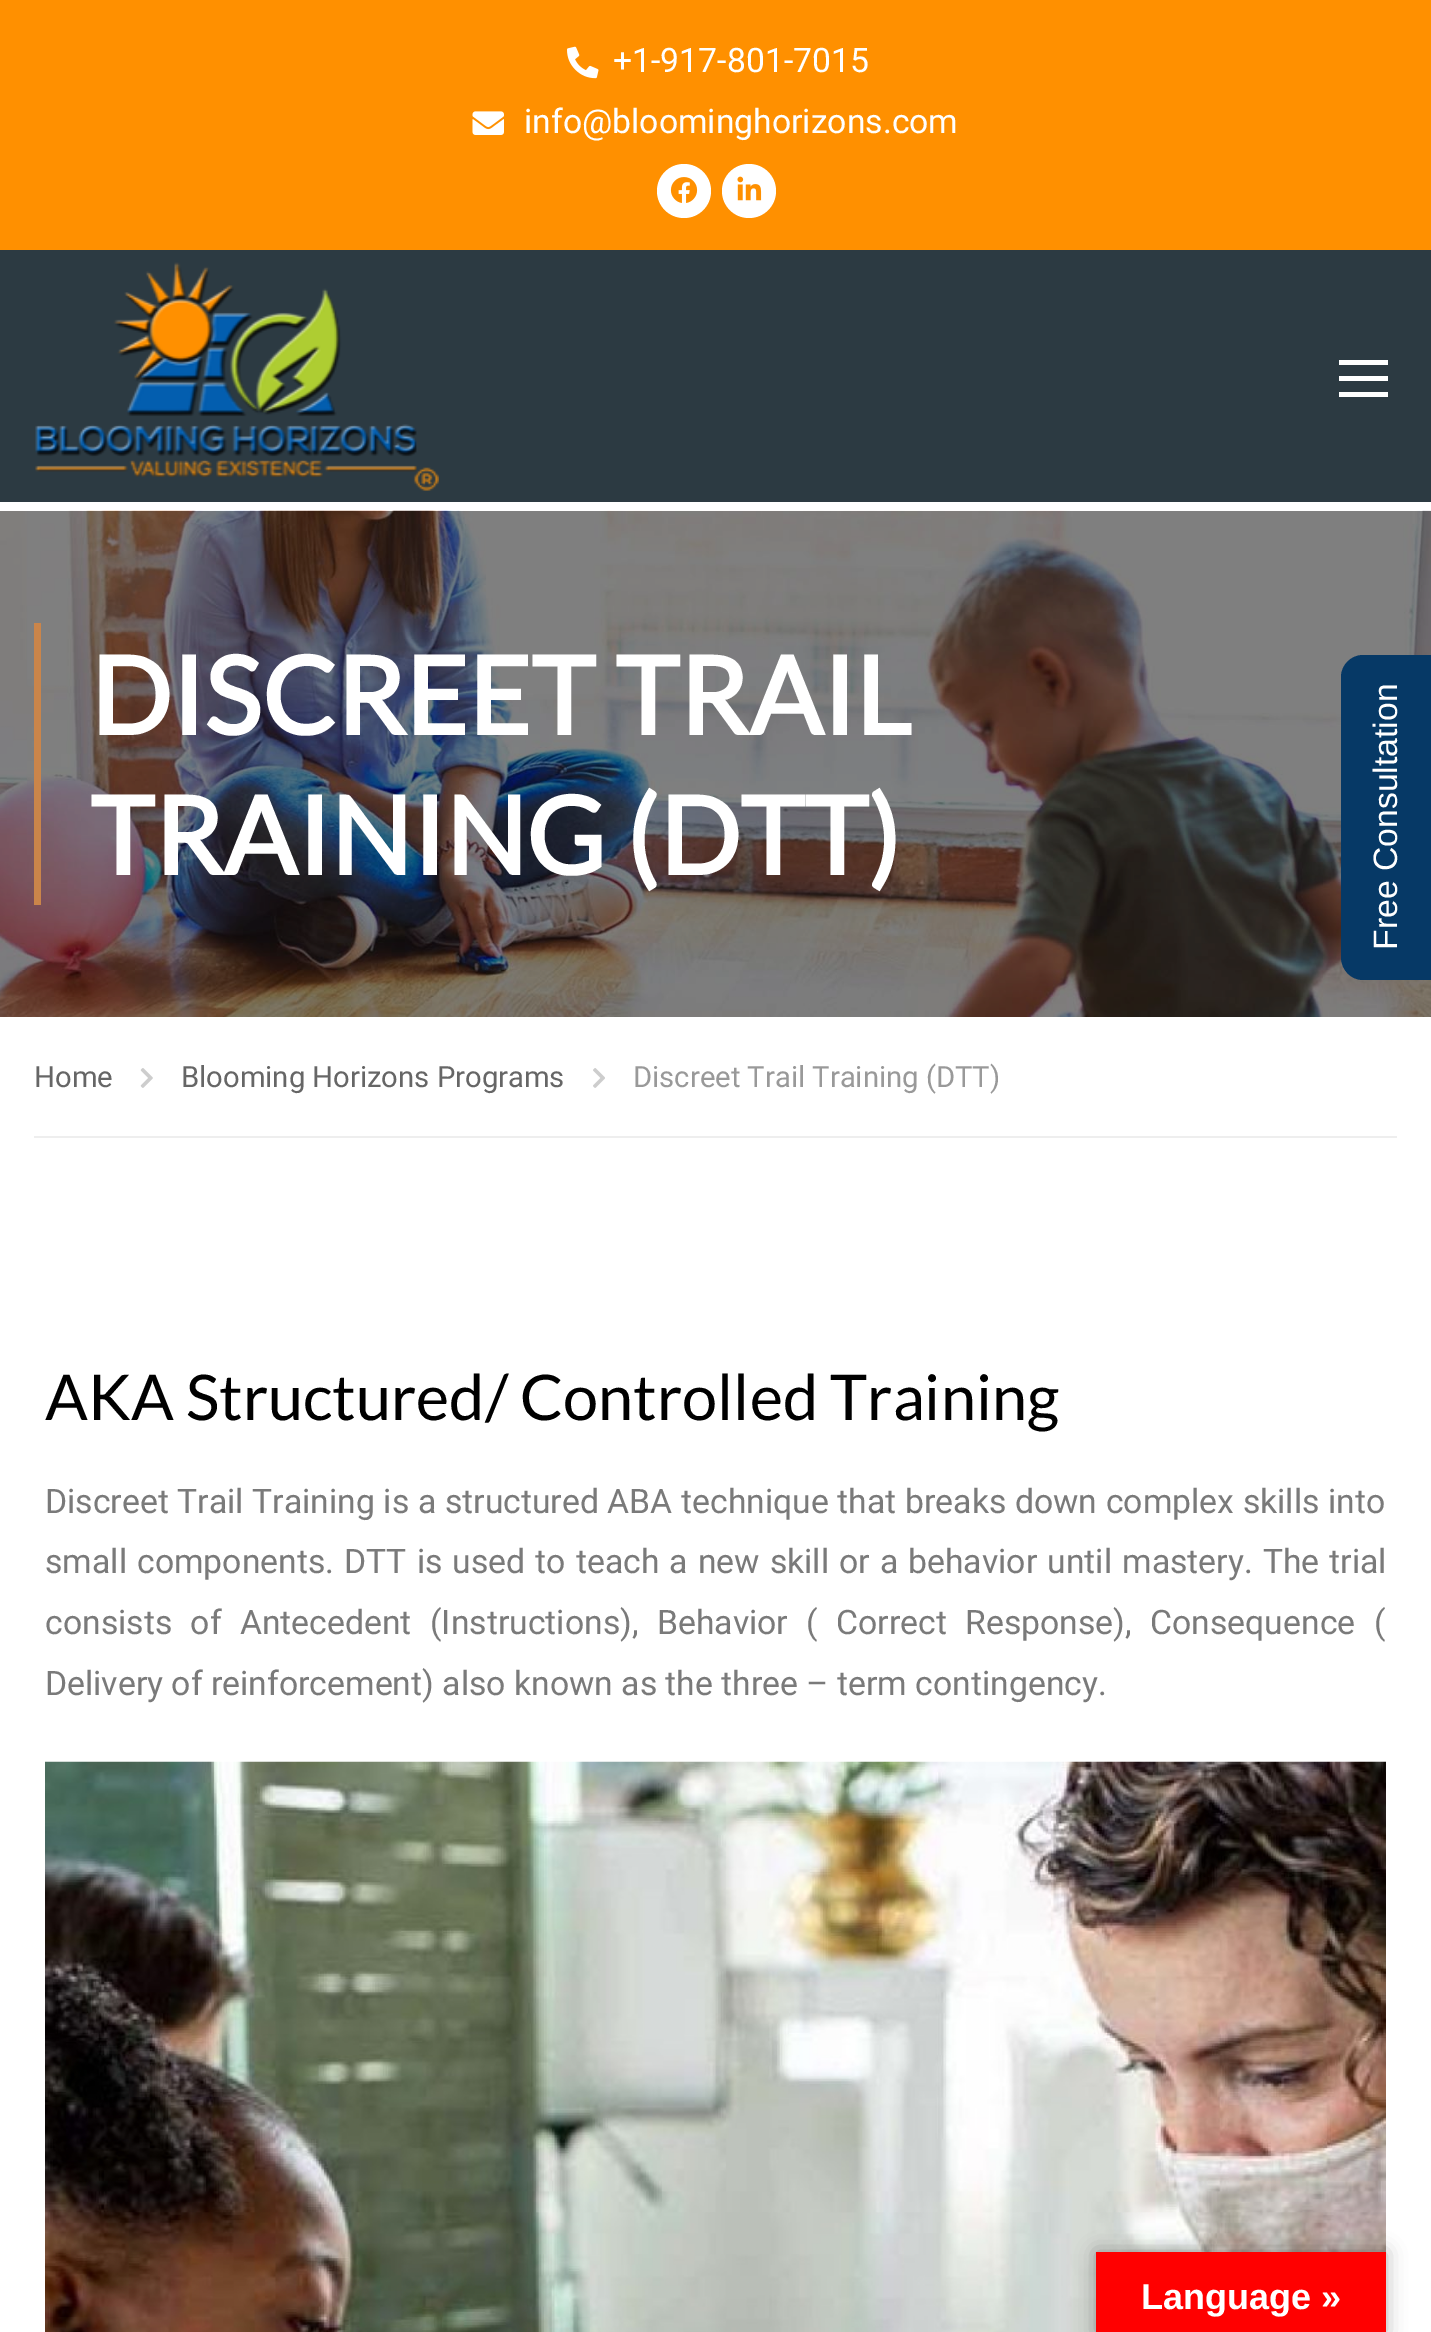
%!PS-Adobe-3.0
%%BoundingBox: 0 0 1431 2332
%%LanguageLevel: 3
%%Pages: 1
%%EndComments
%%BeginProlog
/setink { 3 { 255 div 3 1 roll } repeat setrgbcolor } def
/usefont { [ exch dup neg 0 0 3 -1 roll 0 0 ] selectfont } def
/drawtext { setink usefont moveto show } def
/fillbox { setink rectfill } def
/setalpha { dup .setfillconstantalpha .setstrokeconstantalpha } def
/disc { newpath 0 360 arc closepath } def
/rrect { 5 dict begin { /r /h /w /y /x } { exch def } forall
  x r add y moveto x w add y 2 copy h add r arct x w add y h add x 1 index r arct
  x y h add x y r arct x y 2 copy exch w add exch r arct closepath end } def
/softshadow { 12 dict begin { /a /b /q /h /w /y /x } { exch def } forall gsave /was 0 def
  9 -2 -9 { dup b mul 4 div /e exch def 1 sub .425 mul 2.718 exch exp 1 add a .99 .min exch div /now exch def
    1 1 now sub 1 was sub div sub setalpha /was now def
    w h .min e 2 mul add 0 gt { x e sub y e sub w e 2 mul add h e 2 mul add
      q e add b .6 mul add w h .min 2 div e add .min 0 .max rrect fill } if } for grestore end } def
/drawimage { 5 dict begin { /h /w /y /x /name } { exch def } forall
  gsave x y translate w h scale
  w h 8 [w 0 0 h 0 0] name (r) file false 3 colorimage grestore end } def
%%EndProlog
%%BeginSetup
<< /PageSize [1431 2332] /PageUsesTransparency true >> setpagedevice
%%EndSetup
%%Page: 1 1
0 .pushpdf14devicefilter
0 2332 translate 1 -1 scale
4 setmiterlimit
0 0 1431 2332 255 255 255 fillbox
0 250 1431 252 44 58 66 fillbox
0 0 1431 250 255 144 0 fillbox
(assets/img1.rgb) 567 46 32 33 drawimage
(+1-917-801-7015) 613 72 /Roboto-Regular 33.75 255 255 255 drawtext
(assets/img2.rgb) 472 111 32 24 drawimage
(info@bloominghorizons.com) 524 133 /Roboto-Regular 33.75 255 255 255 drawtext
684 191 27 disc fill
(assets/img3.rgb) 670 177 28 26 drawimage
749 191 27 disc fill
(assets/img4.rgb) 737 176 25 25 drawimage
(assets/img5.rgb) 35 262 404 229 drawimage
1339 360 49 5 255 255 255 fillbox
1339 376 49 5 255 255 255 fillbox
1339 392 49 5 255 255 255 fillbox
(assets/img6.rgb) 0 510 1431 507 drawimage
34 623 7 282 202 133 74 fillbox
(DISCREET TRAIL) 90 735 /Lato-Bold 108 255 255 255 drawtext
(TRAINING \(DTT\)) 90 875 /Lato-Bold 108 255 255 255 drawtext
34 1136 1363 2 238 238 238 fillbox
(Home) 34 1087 /Roboto-Regular 29.25 102 102 102 drawtext
(assets/img7.rgb) 140 1068 13 20 drawimage
(Blooming Horizons Programs) 181 1087 /Roboto-Regular 29.25 102 102 102 drawtext
(assets/img8.rgb) 593 1068 12 20 drawimage
(Discreet Trail Training \(DTT\)) 633 1087 /Roboto-Regular 29.25 153 153 153 drawtext
(AKA Structured/ Controlled Training) 45 1420 /Lato-Regular 63 0 0 0 drawtext
/Roboto-Regular 33.75 usefont
122 122 122 setink
45 1513 moveto 0.25 0 32 (Discreet Trail Training is a structured ABA technique that breaks down complex skills into) widthshow
45 1573 moveto 1.7 0 32 (small components. DTT is used to teach a new skill or a behavior until mastery. The trial) widthshow
45 1634 moveto 10 0 32 (consists of Antecedent \(Instructions\), Behavior \( Correct Response\), Consequence \() widthshow
(Delivery of reinforcement\) also known as the three – term contingency.) 45 1695 /Roboto-Regular 33.75 122 122 122 drawtext
(assets/img9.rgb) 45 1761 1341 571 drawimage
6 57 102 setink
1341 957 moveto 1341 677 lineto 1341 665 1351 655 1363 655 curveto 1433 655 lineto 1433 980 lineto 1363 980 lineto 1351 980 1341 970 1341 957 curveto closepath fill
/LiberationSans-Regular 33.75 usefont
255 255 255 setink
gsave 1397 950 translate -90 rotate 0 0 moveto (Free Consultation) show grestore
0 0 0 setink
1096 2252 290 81 0 10 0.3 softshadow
1096 2252 290 80 255 0 0 fillbox
(Language ») 1141 2309 /LiberationSans-Bold 36 255 255 255 drawtext
.poppdf14devicefilter showpage
%%EOF
